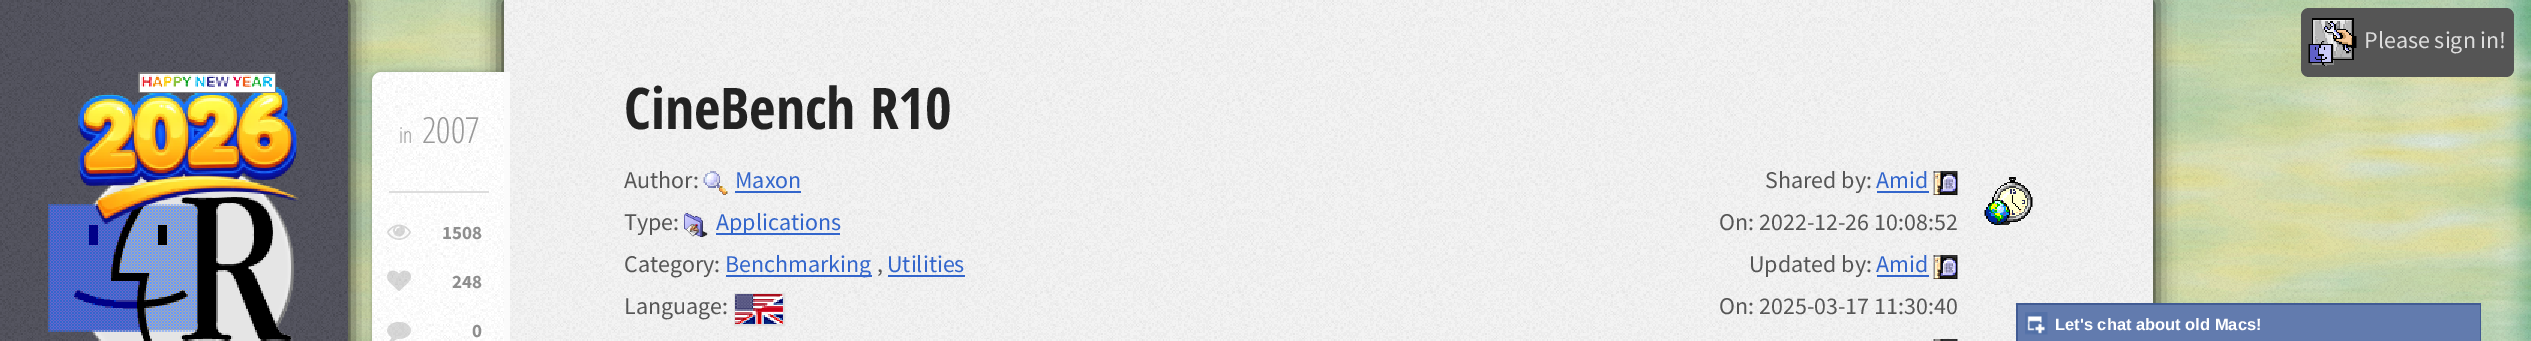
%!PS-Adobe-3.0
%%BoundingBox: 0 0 2531 341
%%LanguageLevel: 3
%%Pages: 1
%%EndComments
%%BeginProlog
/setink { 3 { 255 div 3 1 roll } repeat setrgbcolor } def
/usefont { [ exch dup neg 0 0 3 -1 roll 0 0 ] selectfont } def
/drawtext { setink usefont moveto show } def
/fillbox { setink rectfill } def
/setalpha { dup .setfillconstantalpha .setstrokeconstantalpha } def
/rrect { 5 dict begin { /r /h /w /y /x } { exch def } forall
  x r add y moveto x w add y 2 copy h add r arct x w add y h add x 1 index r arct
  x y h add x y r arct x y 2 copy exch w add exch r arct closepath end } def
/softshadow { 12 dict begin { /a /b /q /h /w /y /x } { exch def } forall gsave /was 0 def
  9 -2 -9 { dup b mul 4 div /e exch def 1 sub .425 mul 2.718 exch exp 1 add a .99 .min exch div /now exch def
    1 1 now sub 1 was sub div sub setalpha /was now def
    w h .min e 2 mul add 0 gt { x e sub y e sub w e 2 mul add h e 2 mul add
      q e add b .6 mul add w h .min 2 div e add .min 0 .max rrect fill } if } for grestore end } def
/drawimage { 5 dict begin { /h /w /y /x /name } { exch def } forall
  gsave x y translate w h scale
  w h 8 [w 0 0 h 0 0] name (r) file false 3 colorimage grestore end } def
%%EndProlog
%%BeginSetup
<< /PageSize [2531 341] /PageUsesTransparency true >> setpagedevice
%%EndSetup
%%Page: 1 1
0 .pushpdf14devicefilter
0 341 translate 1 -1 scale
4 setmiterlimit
0 0 2531 341 255 255 255 fillbox
(assets/img1.rgb) 348 0 2183 341 drawimage
(assets/img2.rgb) 348 0 2183 341 drawimage
0 0 0 setink
0 0 348 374 0 11 1 softshadow
0 0 348 341 85 85 96 fillbox
(assets/img3.rgb) 0 0 348 341 drawimage
(assets/img4.rgb) 48 72 251 269 drawimage
85 85 85 setink
2301 8 213 69 8 rrect fill
(assets/img5.rgb) 2308 18 49 48 drawimage
(Please sign in!) 2364 48 /SourceSansPro-Regular 24 221 221 221 drawtext
0 0 0 setink
504 0 1649 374 0 11 1 softshadow
504 0 1649 341 243 243 243 fillbox
(assets/img6.rgb) 504 0 1649 341 drawimage
0 0 0 setink
372 72 132 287 9 3 0.25 softshadow
504 72 6 269 251 251 251 fillbox
255 255 255 setink
381 72 moveto 504 72 lineto 504 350 lineto 381 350 lineto 376 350 372 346 372 341 curveto 372 81 lineto 372 76 376 72 381 72 curveto closepath fill
(assets/img7.rgb) 372 72 132 269 drawimage
389 191 100 2 221 221 221 fillbox
(in) 399 143 /OpenSansCondensed-Light 22 153 153 153 drawtext
(2007) 422 143 /OpenSansCondensed-Light 36 153 153 153 drawtext
(assets/img8.rgb) 387 224 24 16 drawimage
(1508) 442 239 /SourceSansPro-Bold 19 142 142 142 drawtext
(assets/img9.rgb) 387 270 24 21 drawimage
(248) 452 288 /SourceSansPro-Bold 19 142 142 142 drawtext
(assets/img10.rgb) 387 322 24 19 drawimage
(0) 472 337 /SourceSansPro-Bold 19 142 142 142 drawtext
(CineBench R10) 624 129 /OpenSansCondensed-Bold 57.5 35 35 35 drawtext
(Author:) 624 188 /SourceSansPro-Regular 24 86 86 86 drawtext
(assets/img11.rgb) 703 171 25 24 drawimage
(Maxon) 735 188 /SourceSansPro-Regular 24 51 102 204 drawtext
735 191 66 2 51 102 204 fillbox
(Type:) 624 230 /SourceSansPro-Regular 24 86 86 86 drawtext
(assets/img12.rgb) 684 213 24 24 drawimage
716 233 124 2 51 102 204 fillbox
(Applications) 716 230 /SourceSansPro-Regular 24 51 102 204 drawtext
(Category:) 624 272 /SourceSansPro-Regular 24 86 86 86 drawtext
726 275 146 2 51 102 204 fillbox
(Benchmarking) 725 272 /SourceSansPro-Regular 24 51 102 204 drawtext
(,) 877 272 /SourceSansPro-Regular 24 86 86 86 drawtext
(Utilities) 887 272 /SourceSansPro-Regular 24 51 102 204 drawtext
888 275 77 2 51 102 204 fillbox
224 224 224 setink
2 setlinewidth
735 294 49 31 rectstroke
(Language:) 624 314 /SourceSansPro-Regular 24 86 86 86 drawtext
(assets/img13.rgb) 735 294 48 30 drawimage
(assets/img14.rgb) 1984 177 49 48 drawimage
(Shared by:) 1765 188 /SourceSansPro-Regular 24 86 86 86 drawtext
(Amid) 1876 188 /SourceSansPro-Regular 24 51 102 204 drawtext
1877 191 52 2 51 102 204 fillbox
(assets/img15.rgb) 1933 171 25 24 drawimage
(On: 2022-12-26 10:08:52) 1719 230 /SourceSansPro-Regular 24 86 86 86 drawtext
(Updated by:) 1749 272 /SourceSansPro-Regular 24 86 86 86 drawtext
(Amid) 1876 272 /SourceSansPro-Regular 24 51 102 204 drawtext
1877 275 52 2 51 102 204 fillbox
(assets/img16.rgb) 1933 255 25 24 drawimage
(On: 2025-03-17 11:30:40) 1719 314 /SourceSansPro-Regular 24 86 86 86 drawtext
(assets/img17.rgb) 1933 339 25 2 drawimage
2018 305 462 36 98 123 174 fillbox
2016 303 465 2 65 91 147 fillbox
2480 303 1 38 65 91 147 fillbox
2016 303 2 38 65 91 147 fillbox
(assets/img18.rgb) 2025 312 23 23 drawimage
(Let's chat about old Macs!) 2055 330 /LiberationSans-Bold 16.5 255 255 255 drawtext
.poppdf14devicefilter showpage
%%EOF
